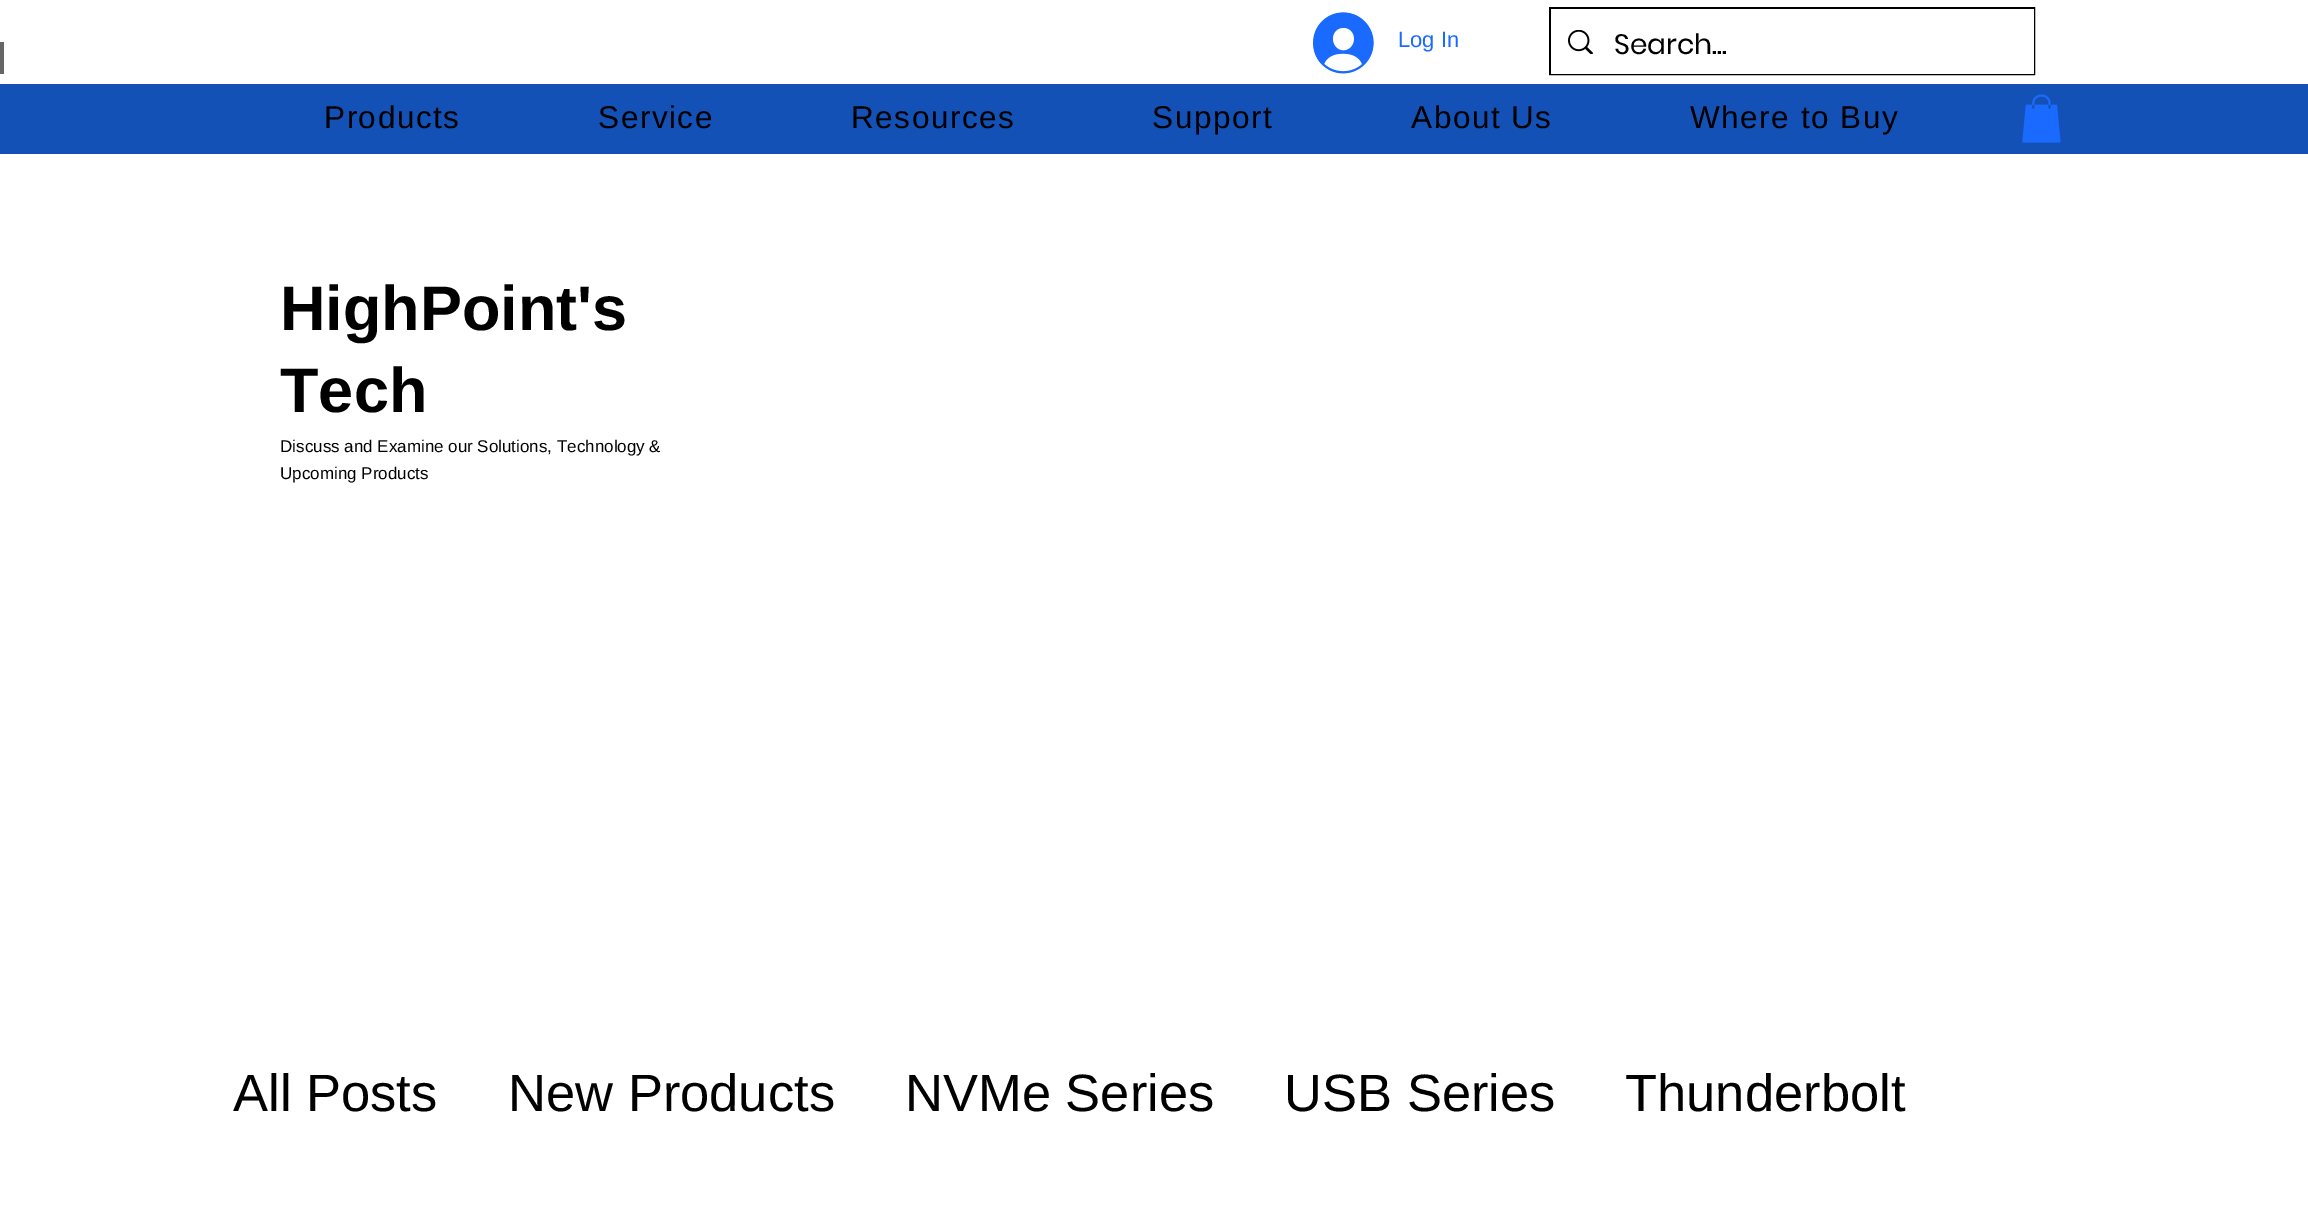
%!PS-Adobe-3.0
%%BoundingBox: 0 0 2308 1216
%%LanguageLevel: 3
%%Pages: 1
%%EndComments
%%BeginProlog
/setink { 3 { 255 div 3 1 roll } repeat setrgbcolor } def
/usefont { [ exch dup neg 0 0 3 -1 roll 0 0 ] selectfont } def
/drawtext { setink usefont moveto show } def
/fillbox { setink rectfill } def
/drawimage { 5 dict begin { /h /w /y /x /name } { exch def } forall
  gsave x y translate w h scale
  w h 8 [w 0 0 h 0 0] name (r) file false 3 colorimage grestore end } def
%%EndProlog
%%BeginSetup
<< /PageSize [2308 1216] >> setpagedevice
%%EndSetup
%%Page: 1 1
0 1216 translate 1 -1 scale
4 setmiterlimit
0 0 2308 1216 255 255 255 fillbox
0 42 4 32 102 102 102 fillbox
(assets/img1.rgb) 1313 12 61 62 drawimage
(Log In) 1398 47 /LiberationSans-Regular 22 26 106 255 drawtext
0 0 0 setink
2 setlinewidth
1550 8 484 66 rectstroke
1551 9 483 65 255 255 255 fillbox
(assets/img2.rgb) 1568 30 25 24 drawimage
(Search...) 1614 54 /Poppins-Regular 28 0 0 0 drawtext
0 84 2308 70 20 81 183 fillbox
/LiberationSans-Regular 31.5 usefont
0 0 0 setink
324 128 moveto 1.5 0 (Products) ashow
598 128 moveto 1.5 0 (Service) ashow
851 128 moveto 1.5 0 (Resources) ashow
1152 128 moveto 1.5 0 (Support) ashow
1411 128 moveto 1.5 0 (About Us) ashow
1690 128 moveto 1.5 0 (Where to Buy) ashow
(assets/img3.rgb) 2022 94 39 49 drawimage
(HighPoint's) 280 330 /LiberationSans-Bold 63 0 0 0 drawtext
(Tech) 280 412 /LiberationSans-Bold 63 0 0 0 drawtext
(Discuss and Examine our Solutions, Technology &) 280 452 /LiberationSans-Regular 17 0 0 0 drawtext
(Upcoming Products) 280 479 /LiberationSans-Regular 17 0 0 0 drawtext
(All Posts) 233 1111 /LiberationSans-Regular 52.5 0 0 0 drawtext
(New Products) 508 1111 /LiberationSans-Regular 52.5 0 0 0 drawtext
(NVMe Series) 905 1111 /LiberationSans-Regular 52.5 0 0 0 drawtext
(USB Series) 1284 1111 /LiberationSans-Regular 52.5 0 0 0 drawtext
(Thunderbolt) 1625 1111 /LiberationSans-Regular 52.5 0 0 0 drawtext
showpage
%%EOF
